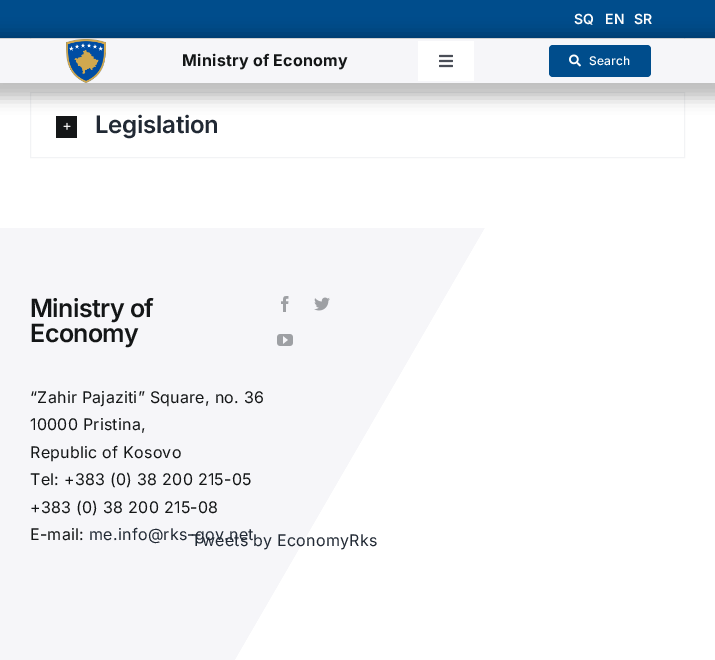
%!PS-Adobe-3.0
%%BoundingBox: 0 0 715 660
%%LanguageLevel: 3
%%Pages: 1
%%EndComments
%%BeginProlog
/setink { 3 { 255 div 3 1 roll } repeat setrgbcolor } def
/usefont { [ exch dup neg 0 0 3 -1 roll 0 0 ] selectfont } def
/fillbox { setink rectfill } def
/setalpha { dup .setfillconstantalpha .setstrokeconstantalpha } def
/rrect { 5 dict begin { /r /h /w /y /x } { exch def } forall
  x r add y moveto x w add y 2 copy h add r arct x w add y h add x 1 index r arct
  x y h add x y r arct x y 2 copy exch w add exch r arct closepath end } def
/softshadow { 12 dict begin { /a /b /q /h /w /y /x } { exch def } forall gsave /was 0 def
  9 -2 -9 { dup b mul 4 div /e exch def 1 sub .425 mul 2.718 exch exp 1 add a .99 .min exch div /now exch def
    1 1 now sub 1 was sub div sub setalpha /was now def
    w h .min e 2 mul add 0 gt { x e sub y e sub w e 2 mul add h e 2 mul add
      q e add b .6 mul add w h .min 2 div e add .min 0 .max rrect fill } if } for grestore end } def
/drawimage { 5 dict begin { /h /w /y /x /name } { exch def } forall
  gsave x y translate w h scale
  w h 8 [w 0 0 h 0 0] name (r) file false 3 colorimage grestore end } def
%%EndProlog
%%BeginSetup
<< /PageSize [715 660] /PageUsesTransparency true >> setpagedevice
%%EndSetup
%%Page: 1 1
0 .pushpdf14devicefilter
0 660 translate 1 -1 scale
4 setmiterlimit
0 0 715 660 255 255 255 fillbox
242 243 245 setink
30.5 17.5 654 64 rectstroke
0 0 715 38 0 77 140 fillbox
/Inter-SemiBold 14 usefont
255 255 255 setink
574 24 moveto 0.25 0 (SQ) ashow
605 24 moveto 0.25 0 (EN) ashow
634 24 moveto 0.25 0 (SR) ashow
242 243 245 setink
30.5 92.5 654 65 rectstroke
56 116 21 22 20 22 23 fillbox
0 0 0 setink
-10 34 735 64 0 7.5 0.25 softshadow
0 39 715 44 246 246 249 fillbox
(assets/img1.rgb) 66 39 40 44 drawimage
/Inter-Bold 16 usefont
20 22 23 setink
182 66 moveto 0.25 0 (Ministry of Economy) ashow
418 41 56 40 255 255 255 fillbox
(assets/img2.rgb) 439 54 14 14 drawimage
0 77 140 setink
549 45 102 32 4 rrect fill
(assets/img3.rgb) 569 54 12 13 drawimage
/Inter-Medium 12 usefont
255 255 255 setink
589 65 moveto 0.25 0 (Search) ashow
(assets/img4.rgb) 63 122 8 8 drawimage
/Inter-SemiBold 24 usefont
33 41 52 setink
95 133 moveto -0.25 0 (Legislation) ashow
gsave 0 228 moveto 485 228 lineto 485 660 lineto 0 660 lineto closepath clip newpath
<< /ShadingType 2 /ColorSpace /DeviceRGB /Coords [-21 264 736 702] /Extend [true true] /Function << /FunctionType 3 /Domain [0 1] /Functions [<< /FunctionType 2 /Domain [0 1] /C0 [0.965 0.965 0.976] /C1 [0.965 0.965 0.976] /N 1 >> << /FunctionType 2 /Domain [0 1] /C0 [1 1 1] /C1 [1 1 1] /N 1 >>] /Bounds [0.48] /Encode [0 1 0 1] >> >> shfill grestore
/Inter-SemiBold 25 usefont
20 22 23 setink
30 317 moveto -0.6 0 (Ministry of) ashow
30 342 moveto -0.6 0 (Economy) ashow
(assets/img5.rgb) 281 296 8 16 drawimage
(assets/img6.rgb) 314 297 16 14 drawimage
(assets/img7.rgb) 277 334 16 12 drawimage
/Inter-Regular 16 usefont
30 403 moveto 0.25 0 (“Zahir Pajaziti” Square, no. 36) ashow
30 430 moveto 0.25 0 (10000 Pristina,) ashow
30 458 moveto 0.25 0 (Republic of Kosovo) ashow
30 485 moveto 0.25 0 (Tel: +383 \(0\) 38 200 215-05) ashow
30 513 moveto 0.25 0 (+383 \(0\) 38 200 215-08) ashow
30 540 moveto 0.25 0 (E-mail:) ashow
33 41 52 setink
191 546 moveto 0.25 0 (Tweets by EconomyRks) ashow
89 540 moveto 0.25 0 (me.info@rks-gov.net) ashow
.poppdf14devicefilter showpage
%%EOF
